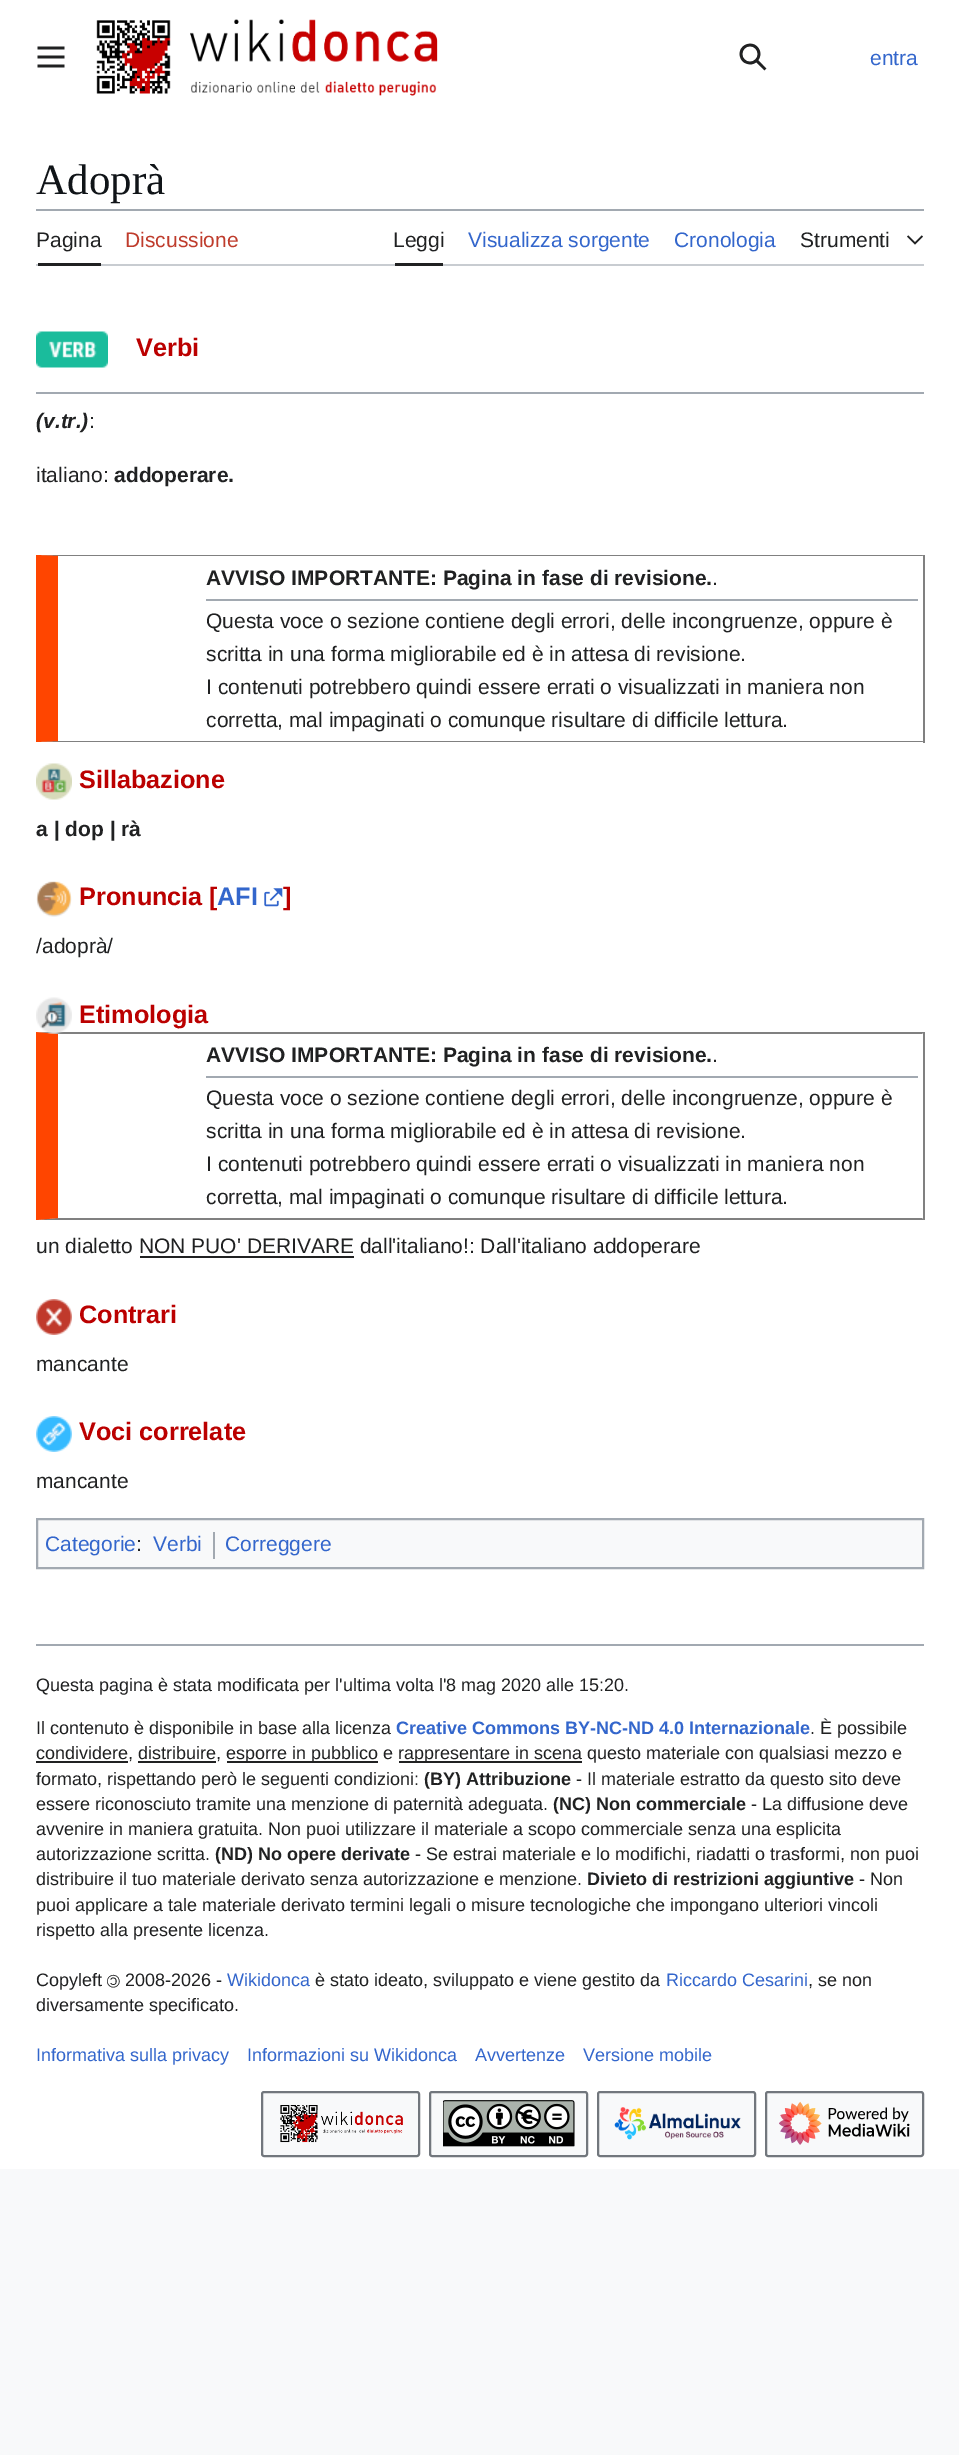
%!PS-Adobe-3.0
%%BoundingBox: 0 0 959 2455
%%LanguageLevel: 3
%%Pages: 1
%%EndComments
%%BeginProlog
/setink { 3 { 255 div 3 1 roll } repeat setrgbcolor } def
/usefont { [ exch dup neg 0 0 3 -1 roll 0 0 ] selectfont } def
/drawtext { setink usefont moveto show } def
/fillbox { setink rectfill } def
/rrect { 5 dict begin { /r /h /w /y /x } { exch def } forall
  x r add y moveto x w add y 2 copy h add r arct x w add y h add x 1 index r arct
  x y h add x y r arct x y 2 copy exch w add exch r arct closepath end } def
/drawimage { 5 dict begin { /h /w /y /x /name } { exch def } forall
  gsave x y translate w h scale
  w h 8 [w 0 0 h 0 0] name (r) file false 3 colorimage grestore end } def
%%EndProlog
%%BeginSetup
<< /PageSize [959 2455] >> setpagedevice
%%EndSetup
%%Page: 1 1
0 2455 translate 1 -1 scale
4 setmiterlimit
0 0 959 2455 248 249 250 fillbox
0 0 959 2169 255 255 255 fillbox
(assets/img1.rgb) 37 46 28 22 drawimage
(assets/img2.rgb) 96 20 75 74 drawimage
(assets/img3.rgb) 190 19 248 43 drawimage
(assets/img4.rgb) 191 81 246 15 drawimage
(assets/img5.rgb) 739 43 28 28 drawimage
(entra) 870 65 /LiberationSans-Regular 21 51 102 204 drawtext
(Adoprà) 36 194 /LiberationSerif-Regular 43 16 20 24 drawtext
36 209 888 2 162 169 177 fillbox
36 264 888 2 200 204 209 fillbox
38 263 63 3 32 33 34 fillbox
(Pagina) 36 247 /LiberationSans-Regular 21 32 33 34 drawtext
(Discussione) 125 247 /LiberationSans-Regular 21 191 60 44 drawtext
395 263 48 3 32 33 34 fillbox
(Leggi) 393 247 /LiberationSans-Regular 21 32 33 34 drawtext
(Visualizza sorgente) 468 247 /LiberationSans-Regular 21 51 102 204 drawtext
(Cronologia) 674 247 /LiberationSans-Regular 21 51 102 204 drawtext
(Strumenti) 800 247 /LiberationSans-Regular 21 32 33 34 drawtext
(assets/img6.rgb) 907 235 16 10 drawimage
(assets/img7.rgb) 36 331 72 37 drawimage
(Verbi) 136 356 /LiberationSans-Bold 25.25 187 0 0 drawtext
36 392 888 2 162 169 177 fillbox
(\(v.tr.\)) 36 428 /LiberationSans-BoldItalic 21 32 33 34 drawtext
(:) 89 428 /LiberationSans-Regular 21 32 33 34 drawtext
(italiano:) 36 482 /LiberationSans-Regular 21 32 33 34 drawtext
(addoperare.) 114 482 /LiberationSans-Bold 21 32 33 34 drawtext
128 128 128 setink
36 555 moveto 924 555 lineto 922 556 lineto 58 556 lineto closepath fill
923 555 2 188 128 128 128 fillbox
924 742 moveto 36 742 lineto 58 741 lineto 922 741 lineto closepath fill
255 69 0 setink
36 742 moveto 36 555 lineto 58 556 lineto 58 741 lineto closepath fill
(AVVISO IMPORTANTE: Pagina in fase di revisione.) 206 585 /LiberationSans-Bold 21 32 33 34 drawtext
(.) 712 585 /LiberationSans-Regular 21 32 33 34 drawtext
206 599 712 2 162 169 177 fillbox
(Questa voce o sezione contiene degli errori, delle incongruenze, oppure è) 206 628 /LiberationSans-Regular 21 32 33 34 drawtext
(scritta in una forma migliorabile ed è in attesa di revisione.) 206 661 /LiberationSans-Regular 21 32 33 34 drawtext
(I contenuti potrebbero quindi essere errati o visualizzati in maniera non) 206 694 /LiberationSans-Regular 21 32 33 34 drawtext
(corretta, mal impaginati o comunque risultare di difficile lettura.) 206 727 /LiberationSans-Regular 21 32 33 34 drawtext
(assets/img8.rgb) 36 763 36 37 drawimage
(Sillabazione) 79 788 /LiberationSans-Bold 25.25 187 0 0 drawtext
(a | dop | rà) 36 836 /LiberationSans-Bold 21 32 33 34 drawtext
(assets/img9.rgb) 36 881 36 36 drawimage
(Pronuncia [) 79 905 /LiberationSans-Bold 25.25 187 0 0 drawtext
(AFI) 217 905 /LiberationSans-Bold 25.25 51 102 204 drawtext
(assets/img10.rgb) 264 888 19 19 drawimage
(]) 283 905 /LiberationSans-Bold 25.25 187 0 0 drawtext
(/adoprà/) 36 953 /LiberationSans-Regular 21 32 33 34 drawtext
128 128 128 setink
36 1032 moveto 924 1032 lineto 922 1034 lineto 58 1034 lineto closepath fill
923 1032 2 188 128 128 128 fillbox
924 1220 moveto 36 1220 lineto 58 1218 lineto 922 1218 lineto closepath fill
255 69 0 setink
36 1220 moveto 36 1032 lineto 58 1034 lineto 58 1218 lineto closepath fill
(assets/img11.rgb) 36 997 36 37 drawimage
(Etimologia) 79 1023 /LiberationSans-Bold 25.25 187 0 0 drawtext
(AVVISO IMPORTANTE: Pagina in fase di revisione.) 206 1062 /LiberationSans-Bold 21 32 33 34 drawtext
(.) 712 1062 /LiberationSans-Regular 21 32 33 34 drawtext
206 1076 712 2 162 169 177 fillbox
(Questa voce o sezione contiene degli errori, delle incongruenze, oppure è) 206 1105 /LiberationSans-Regular 21 32 33 34 drawtext
(scritta in una forma migliorabile ed è in attesa di revisione.) 206 1138 /LiberationSans-Regular 21 32 33 34 drawtext
(I contenuti potrebbero quindi essere errati o visualizzati in maniera non) 206 1171 /LiberationSans-Regular 21 32 33 34 drawtext
(corretta, mal impaginati o comunque risultare di difficile lettura.) 206 1204 /LiberationSans-Regular 21 32 33 34 drawtext
(un dialetto NON PUO' DERIVARE dall'italiano!: Dall'italiano addoperare) 36 1253 /LiberationSans-Regular 21 32 33 34 drawtext
140 1256 214 2 32 33 34 fillbox
(assets/img12.rgb) 36 1299 36 36 drawimage
(Contrari) 79 1323 /LiberationSans-Bold 25.25 187 0 0 drawtext
(mancante) 36 1371 /LiberationSans-Regular 21 32 33 34 drawtext
(assets/img13.rgb) 36 1416 36 36 drawimage
(Voci correlate) 79 1440 /LiberationSans-Bold 25.25 187 0 0 drawtext
(mancante) 36 1488 /LiberationSans-Regular 21 32 33 34 drawtext
248 249 250 setink
37 1519 moveto 923 1519 lineto 923 1568 lineto 37 1568 lineto closepath gsave fill grestore
162 169 177 setink
2 setlinewidth
stroke
(Categorie) 45 1551 /LiberationSans-Regular 21 51 102 204 drawtext
(:) 136 1551 /LiberationSans-Regular 21 32 33 34 drawtext
(Verbi) 153 1551 /LiberationSans-Regular 21 51 102 204 drawtext
213 1532 2 27 162 169 177 fillbox
(Correggere) 225 1551 /LiberationSans-Regular 21 51 102 204 drawtext
36 1644 888 2 162 169 177 fillbox
(Questa pagina è stata modificata per l'ultima volta l'8 mag 2020 alle 15:20.) 36 1691 /LiberationSans-Regular 18 32 33 34 drawtext
(Il contenuto è disponibile in base alla licenza) 36 1734 /LiberationSans-Regular 18 32 33 34 drawtext
(Creative Commons BY-NC-ND 4.0 Internazionale) 396 1734 /LiberationSans-Bold 18 51 102 204 drawtext
(. È possibile) 810 1734 /LiberationSans-Regular 18 32 33 34 drawtext
36 1761 92 2 32 33 34 fillbox
(condividere, distribuire,) 36 1759 /LiberationSans-Regular 18 32 33 34 drawtext
227 1761 151 2 32 33 34 fillbox
(esporre in pubblico e) 226 1759 /LiberationSans-Regular 18 32 33 34 drawtext
399 1761 183 2 32 33 34 fillbox
(rappresentare in scena questo materiale con qualsiasi mezzo e) 398 1759 /LiberationSans-Regular 18 32 33 34 drawtext
138 1761 78 2 32 33 34 fillbox
(formato, rispettando però le seguenti condizioni:) 36 1785 /LiberationSans-Regular 18 32 33 34 drawtext
(\(BY\) Attribuzione) 424 1785 /LiberationSans-Bold 18 32 33 34 drawtext
(- Il materiale estratto da questo sito deve) 576 1785 /LiberationSans-Regular 18 32 33 34 drawtext
(essere riconosciuto tramite una menzione di paternità adeguata.) 36 1810 /LiberationSans-Regular 18 32 33 34 drawtext
(\(NC\) Non commerciale) 553 1810 /LiberationSans-Bold 18 32 33 34 drawtext
(- La diffusione deve) 751 1810 /LiberationSans-Regular 18 32 33 34 drawtext
(avvenire in maniera gratuita. Non puoi utilizzare il materiale a scopo commerciale senza una esplicita) 36 1835 /LiberationSans-Regular 18 32 33 34 drawtext
(autorizzazione scritta.) 36 1860 /LiberationSans-Regular 18 32 33 34 drawtext
(\(ND\) No opere derivate) 215 1860 /LiberationSans-Bold 18 32 33 34 drawtext
(- Se estrai materiale e lo modifichi, riadatti o trasformi, non puoi) 415 1860 /LiberationSans-Regular 18 32 33 34 drawtext
(distribuire il tuo materiale derivato senza autorizzazione e menzione.) 36 1885 /LiberationSans-Regular 18 32 33 34 drawtext
(Divieto di restrizioni aggiuntive) 587 1885 /LiberationSans-Bold 18 32 33 34 drawtext
(- Non) 859 1885 /LiberationSans-Regular 18 32 33 34 drawtext
(puoi applicare a tale materiale derivato termini legali o misure tecnologiche che impongano ulteriori vincoli) 36 1911 /LiberationSans-Regular 18 32 33 34 drawtext
(rispetto alla presente licenza.) 36 1936 /LiberationSans-Regular 18 32 33 34 drawtext
(Copyleft) 36 1986 /LiberationSans-Regular 18 32 33 34 drawtext
gsave 120 1975 translate 180 rotate 0 0 moveto (©) show grestore
(2008-2026 -) 125 1986 /LiberationSans-Regular 18 32 33 34 drawtext
(Wikidonca) 227 1986 /LiberationSans-Regular 18 51 102 204 drawtext
(è stato ideato, sviluppato e viene gestito da) 315 1986 /LiberationSans-Regular 18 32 33 34 drawtext
(Riccardo Cesarini) 666 1986 /LiberationSans-Regular 18 51 102 204 drawtext
(, se non) 808 1986 /LiberationSans-Regular 18 32 33 34 drawtext
(diversamente specificato.) 36 2011 /LiberationSans-Regular 18 32 33 34 drawtext
(Informativa sulla privacy) 36 2061 /LiberationSans-Regular 18 51 102 204 drawtext
(Informazioni su Wikidonca) 247 2061 /LiberationSans-Regular 18 51 102 204 drawtext
(Avvertenze) 475 2061 /LiberationSans-Regular 18 51 102 204 drawtext
(Versione mobile) 583 2061 /LiberationSans-Regular 18 51 102 204 drawtext
248 249 250 setink
262 2092 157 64 2 rrect gsave fill grestore
114 119 125 setink
stroke
(assets/img14.rgb) 280 2105 123 38 drawimage
248 249 250 setink
430 2092 157 64 2 rrect gsave fill grestore
114 119 125 setink
stroke
(assets/img15.rgb) 443 2100 132 47 drawimage
248 249 250 setink
598 2092 157 64 2 rrect gsave fill grestore
114 119 125 setink
stroke
(assets/img16.rgb) 614 2107 127 33 drawimage
248 249 250 setink
766 2092 157 64 2 rrect gsave fill grestore
114 119 125 setink
stroke
(assets/img17.rgb) 779 2101 131 44 drawimage
showpage
%%EOF
